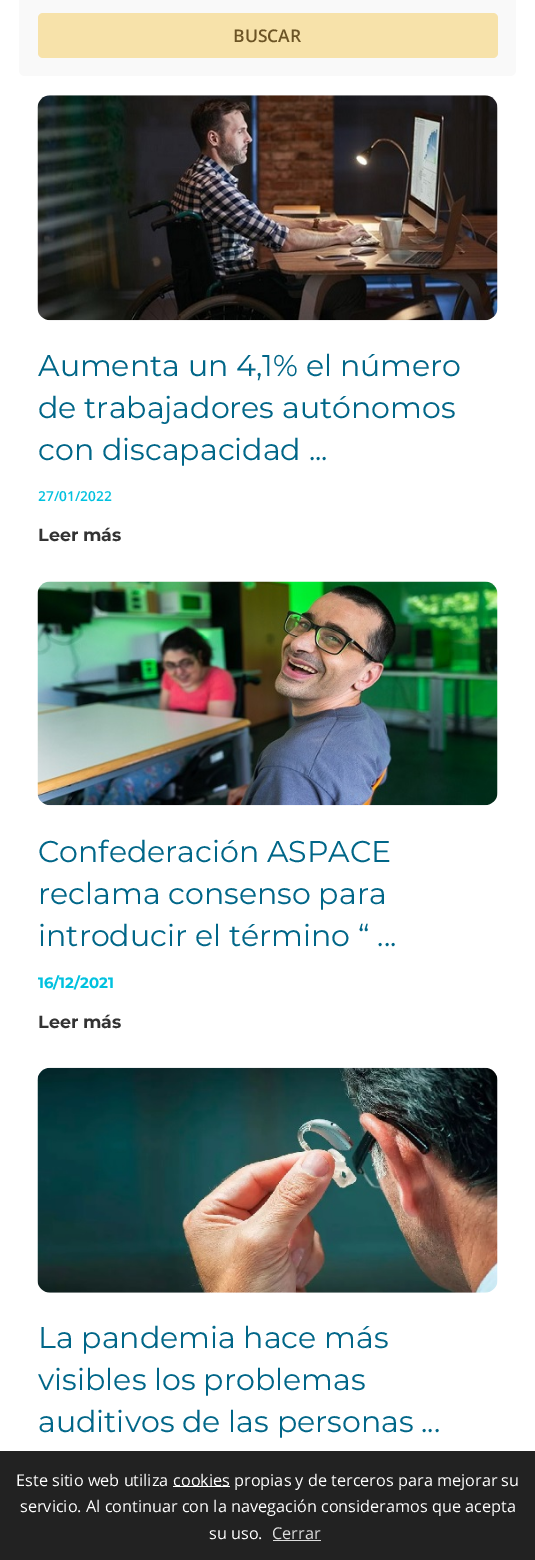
%!PS-Adobe-3.0
%%BoundingBox: 0 0 535 1560
%%LanguageLevel: 3
%%Pages: 1
%%EndComments
%%BeginProlog
/setink { 3 { 255 div 3 1 roll } repeat setrgbcolor } def
/usefont { [ exch dup neg 0 0 3 -1 roll 0 0 ] selectfont } def
/drawtext { setink usefont moveto show } def
/fillbox { setink rectfill } def
/rrect { 5 dict begin { /r /h /w /y /x } { exch def } forall
  x r add y moveto x w add y 2 copy h add r arct x w add y h add x 1 index r arct
  x y h add x y r arct x y 2 copy exch w add exch r arct closepath end } def
/drawimage { 5 dict begin { /h /w /y /x /name } { exch def } forall
  gsave x y translate w h scale
  w h 8 [w 0 0 h 0 0] name (r) file false 3 colorimage grestore end } def
%%EndProlog
%%BeginSetup
<< /PageSize [535 1560] >> setpagedevice
%%EndSetup
%%Page: 1 1
0 1560 translate 1 -1 scale
4 setmiterlimit
0 0 535 1560 255 255 255 fillbox
249 249 249 setink
19 -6 497 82 6 rrect fill
247 226 170 setink
38 13 460 45 5 rrect fill
(BUSCAR) 233 42 /OpenSans-SemiBold 17.5 108 84 37 drawtext
(assets/img1.rgb) 37 95 461 226 drawimage
(Aumenta un 4,1% el número) 38 376 /Montserrat-Regular 30 0 102 136 drawtext
(de trabajadores autónomos) 38 418 /Montserrat-Regular 30 0 102 136 drawtext
(con discapacidad ...) 38 460 /Montserrat-Regular 30 0 102 136 drawtext
(27/01/2022) 38 501 /OpenSans-SemiBold 13.75 0 193 223 drawtext
(Leer más) 38 541 /Montserrat-Bold 17.5 51 51 51 drawtext
(assets/img2.rgb) 37 581 461 225 drawimage
(Confederación ASPACE) 38 862 /Montserrat-Regular 30 0 102 136 drawtext
(reclama consenso para) 38 904 /Montserrat-Regular 30 0 102 136 drawtext
(introducir el término “ ...) 38 946 /Montserrat-Regular 30 0 102 136 drawtext
(16/12/2021) 38 988 /Montserrat-Bold 15 0 193 223 drawtext
(Leer más) 38 1028 /Montserrat-Bold 17.5 51 51 51 drawtext
(assets/img3.rgb) 37 1067 461 226 drawimage
(La pandemia hace más) 38 1348 /Montserrat-Regular 30 0 102 136 drawtext
(visibles los problemas) 38 1390 /Montserrat-Regular 30 0 102 136 drawtext
(auditivos de las personas ...) 38 1432 /Montserrat-Regular 30 0 102 136 drawtext
0 1451 535 109 34 34 34 fillbox
(Este sitio web utiliza) 16 1486 /OpenSans-Regular 16.25 255 255 255 drawtext
173 1486 57 1 255 255 255 fillbox
(cookies) 173 1486 /OpenSans-Regular 16.25 255 255 255 drawtext
(propias y de terceros para mejorar su) 234 1486 /OpenSans-Regular 16.25 255 255 255 drawtext
(servicio. Al continuar con la navegación consideramos que acepta) 20 1512 /OpenSans-Regular 16.25 255 255 255 drawtext
(su uso.) 209 1539 /OpenSans-Regular 16.25 255 255 255 drawtext
(Cerrar) 272 1539 /OpenSans-Regular 16.25 221 221 221 drawtext
273 1540 48 1 221 221 221 fillbox
showpage
%%EOF
